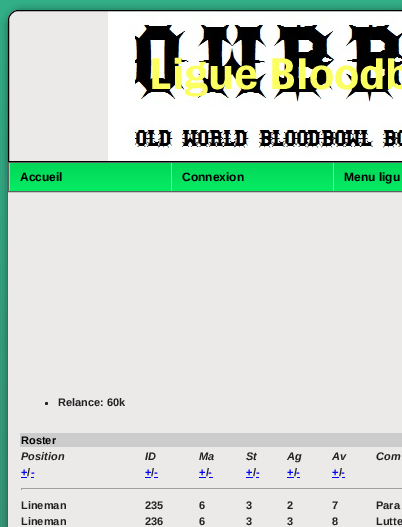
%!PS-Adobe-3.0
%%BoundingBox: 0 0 402 527
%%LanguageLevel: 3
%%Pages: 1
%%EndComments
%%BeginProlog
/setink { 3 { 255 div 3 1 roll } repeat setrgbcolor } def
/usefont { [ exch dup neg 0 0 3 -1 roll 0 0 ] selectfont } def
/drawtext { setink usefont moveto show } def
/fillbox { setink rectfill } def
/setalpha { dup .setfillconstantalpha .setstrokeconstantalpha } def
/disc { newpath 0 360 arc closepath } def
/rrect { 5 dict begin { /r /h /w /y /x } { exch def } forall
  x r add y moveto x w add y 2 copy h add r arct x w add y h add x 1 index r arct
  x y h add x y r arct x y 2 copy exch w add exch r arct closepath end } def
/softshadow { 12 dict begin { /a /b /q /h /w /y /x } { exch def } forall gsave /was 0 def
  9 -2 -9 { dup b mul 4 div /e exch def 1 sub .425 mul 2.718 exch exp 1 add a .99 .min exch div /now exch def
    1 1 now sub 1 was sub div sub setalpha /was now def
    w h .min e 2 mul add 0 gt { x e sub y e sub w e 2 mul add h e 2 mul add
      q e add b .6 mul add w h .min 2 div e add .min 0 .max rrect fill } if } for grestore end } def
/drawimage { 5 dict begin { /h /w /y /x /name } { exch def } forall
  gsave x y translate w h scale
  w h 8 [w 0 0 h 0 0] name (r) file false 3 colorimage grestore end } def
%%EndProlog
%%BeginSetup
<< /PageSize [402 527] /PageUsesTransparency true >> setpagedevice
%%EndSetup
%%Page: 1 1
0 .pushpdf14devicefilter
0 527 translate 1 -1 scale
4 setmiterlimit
0 0 402 527 255 255 255 fillbox
gsave 0 0 moveto 402 0 lineto 402 527 lineto 0 527 lineto closepath clip newpath
<< /ShadingType 2 /ColorSpace /DeviceRGB /Coords [201 0 201 527] /Extend [true true] /Function << /FunctionType 2 /Domain [0 1] /C0 [0.196 0.69 0.533] /C1 [0.22 0.6 0.478] /N 1 >> >> shfill grestore
0 0 0 setink
11 14 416 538 10 5 1 softshadow
236 233 233 setink
18 10 moveto 402 10 lineto 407.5 10 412 14.5 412 20 curveto 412 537 lineto 8 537 lineto 8 20 lineto 8 14.5 12.5 10 18 10 curveto closepath fill
(assets/img1.rgb) 108 11 294 150 drawimage
0 0 0 setink
18 10.5 moveto 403 10.5 lineto 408 10.5 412.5 15 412.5 20 curveto 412.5 161.5 lineto 8.5 161.5 lineto 8.5 20 lineto 8.5 15 13 10.5 18 10.5 curveto closepath stroke
(Ligue Bloodb) 149 89 /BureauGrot-Medium 40 252 255 97 drawtext
95 95 95 setink
8.5 162.5 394 29 rectstroke
gsave 10 163 moveto 171 163 lineto 171 191 lineto 10 191 lineto closepath clip newpath
<< /ShadingType 2 /ColorSpace /DeviceRGB /Coords [91 163 91 191] /Extend [true true] /Function << /FunctionType 2 /Domain [0 1] /C0 [0.004 0.843 0.345] /C1 [0.024 0.925 0.392] /N 1 >> >> shfill grestore
9 163 1 28 192 192 192 fillbox
(Accueil) 20 181 /LiberationSans-Bold 12 0 0 0 drawtext
gsave 172 163 moveto 333 163 lineto 333 191 lineto 172 191 lineto closepath clip newpath
<< /ShadingType 2 /ColorSpace /DeviceRGB /Coords [253 163 253 191] /Extend [true true] /Function << /FunctionType 2 /Domain [0 1] /C0 [0.004 0.843 0.345] /C1 [0.024 0.925 0.392] /N 1 >> >> shfill grestore
171 163 1 28 192 192 192 fillbox
(Connexion) 182 181 /LiberationSans-Bold 12 0 0 0 drawtext
gsave 334 163 moveto 402 163 lineto 402 191 lineto 334 191 lineto closepath clip newpath
<< /ShadingType 2 /ColorSpace /DeviceRGB /Coords [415 163 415 191] /Extend [true true] /Function << /FunctionType 2 /Domain [0 1] /C0 [0.004 0.843 0.345] /C1 [0.024 0.925 0.392] /N 1 >> >> shfill grestore
333 163 1 28 192 192 192 fillbox
(Menu ligu) 344 181 /LiberationSans-Bold 12 0 0 0 drawtext
34 34 34 setink
46.5 403.5 1.5 disc fill
(Relance: 60k) 58 406 /LiberationSans-Bold 11 34 34 34 drawtext
20 433 382 14 204 204 204 fillbox
(Roster) 21 444 /LiberationSans-Bold 11 0 0 0 drawtext
(Position) 21 460 /LiberationSans-BoldItalic 11 34 34 34 drawtext
(ID) 145 460 /LiberationSans-BoldItalic 11 34 34 34 drawtext
(Ma) 199 460 /LiberationSans-BoldItalic 11 34 34 34 drawtext
(St) 246 460 /LiberationSans-BoldItalic 11 34 34 34 drawtext
(Ag) 287 460 /LiberationSans-BoldItalic 11 34 34 34 drawtext
(Av) 332 460 /LiberationSans-BoldItalic 11 34 34 34 drawtext
(Com) 376 460 /LiberationSans-BoldItalic 11 34 34 34 drawtext
(+) 21 476 /LiberationSans-Bold 11 0 0 238 drawtext
21 477 6 1 0 0 238 fillbox
(/) 27 476 /LiberationSans-Bold 11 34 34 34 drawtext
(-) 31 476 /LiberationSans-Bold 11 0 0 238 drawtext
31 477 3 1 0 0 238 fillbox
(+) 145 476 /LiberationSans-Bold 11 0 0 238 drawtext
145 477 6 1 0 0 238 fillbox
(/) 151 476 /LiberationSans-Bold 11 34 34 34 drawtext
(-) 154 476 /LiberationSans-Bold 11 0 0 238 drawtext
154 477 4 1 0 0 238 fillbox
(+ -) 199 476 /LiberationSans-Bold 11 0 0 238 drawtext
(/) 206 476 /LiberationSans-Bold 11 34 34 34 drawtext
199 477 7 1 0 0 238 fillbox
209 477 4 1 0 0 238 fillbox
(+) 246 476 /LiberationSans-Bold 11 0 0 238 drawtext
246 477 7 1 0 0 238 fillbox
(/) 253 476 /LiberationSans-Bold 11 34 34 34 drawtext
(-) 256 476 /LiberationSans-Bold 11 0 0 238 drawtext
256 477 3 1 0 0 238 fillbox
(+ -) 287 476 /LiberationSans-Bold 11 0 0 238 drawtext
(/) 294 476 /LiberationSans-Bold 11 34 34 34 drawtext
287 477 7 1 0 0 238 fillbox
297 477 3 1 0 0 238 fillbox
(+ -) 332 476 /LiberationSans-Bold 11 0 0 238 drawtext
(/) 339 476 /LiberationSans-Bold 11 34 34 34 drawtext
332 477 7 1 0 0 238 fillbox
342 477 3 1 0 0 238 fillbox
21 488 381 1 159 159 159 fillbox
21 489 381 1 238 238 238 fillbox
21 488 1 2 159 159 159 fillbox
(Lineman) 21 509 /LiberationSans-Bold 11 34 34 34 drawtext
(235) 145 509 /LiberationSans-Bold 11 34 34 34 drawtext
(6) 199 509 /LiberationSans-Bold 11 34 34 34 drawtext
(3) 246 509 /LiberationSans-Bold 11 34 34 34 drawtext
(2) 287 509 /LiberationSans-Bold 11 34 34 34 drawtext
(7) 332 509 /LiberationSans-Bold 11 34 34 34 drawtext
(Para) 376 509 /LiberationSans-Bold 11 34 34 34 drawtext
(Lineman) 21 525 /LiberationSans-Bold 11 34 34 34 drawtext
(236) 145 525 /LiberationSans-Bold 11 34 34 34 drawtext
(6) 199 525 /LiberationSans-Bold 11 34 34 34 drawtext
(3) 246 525 /LiberationSans-Bold 11 34 34 34 drawtext
(3) 287 525 /LiberationSans-Bold 11 34 34 34 drawtext
(8) 332 525 /LiberationSans-Bold 11 34 34 34 drawtext
(Lutte) 376 525 /LiberationSans-Bold 11 34 34 34 drawtext
.poppdf14devicefilter showpage
%%EOF
